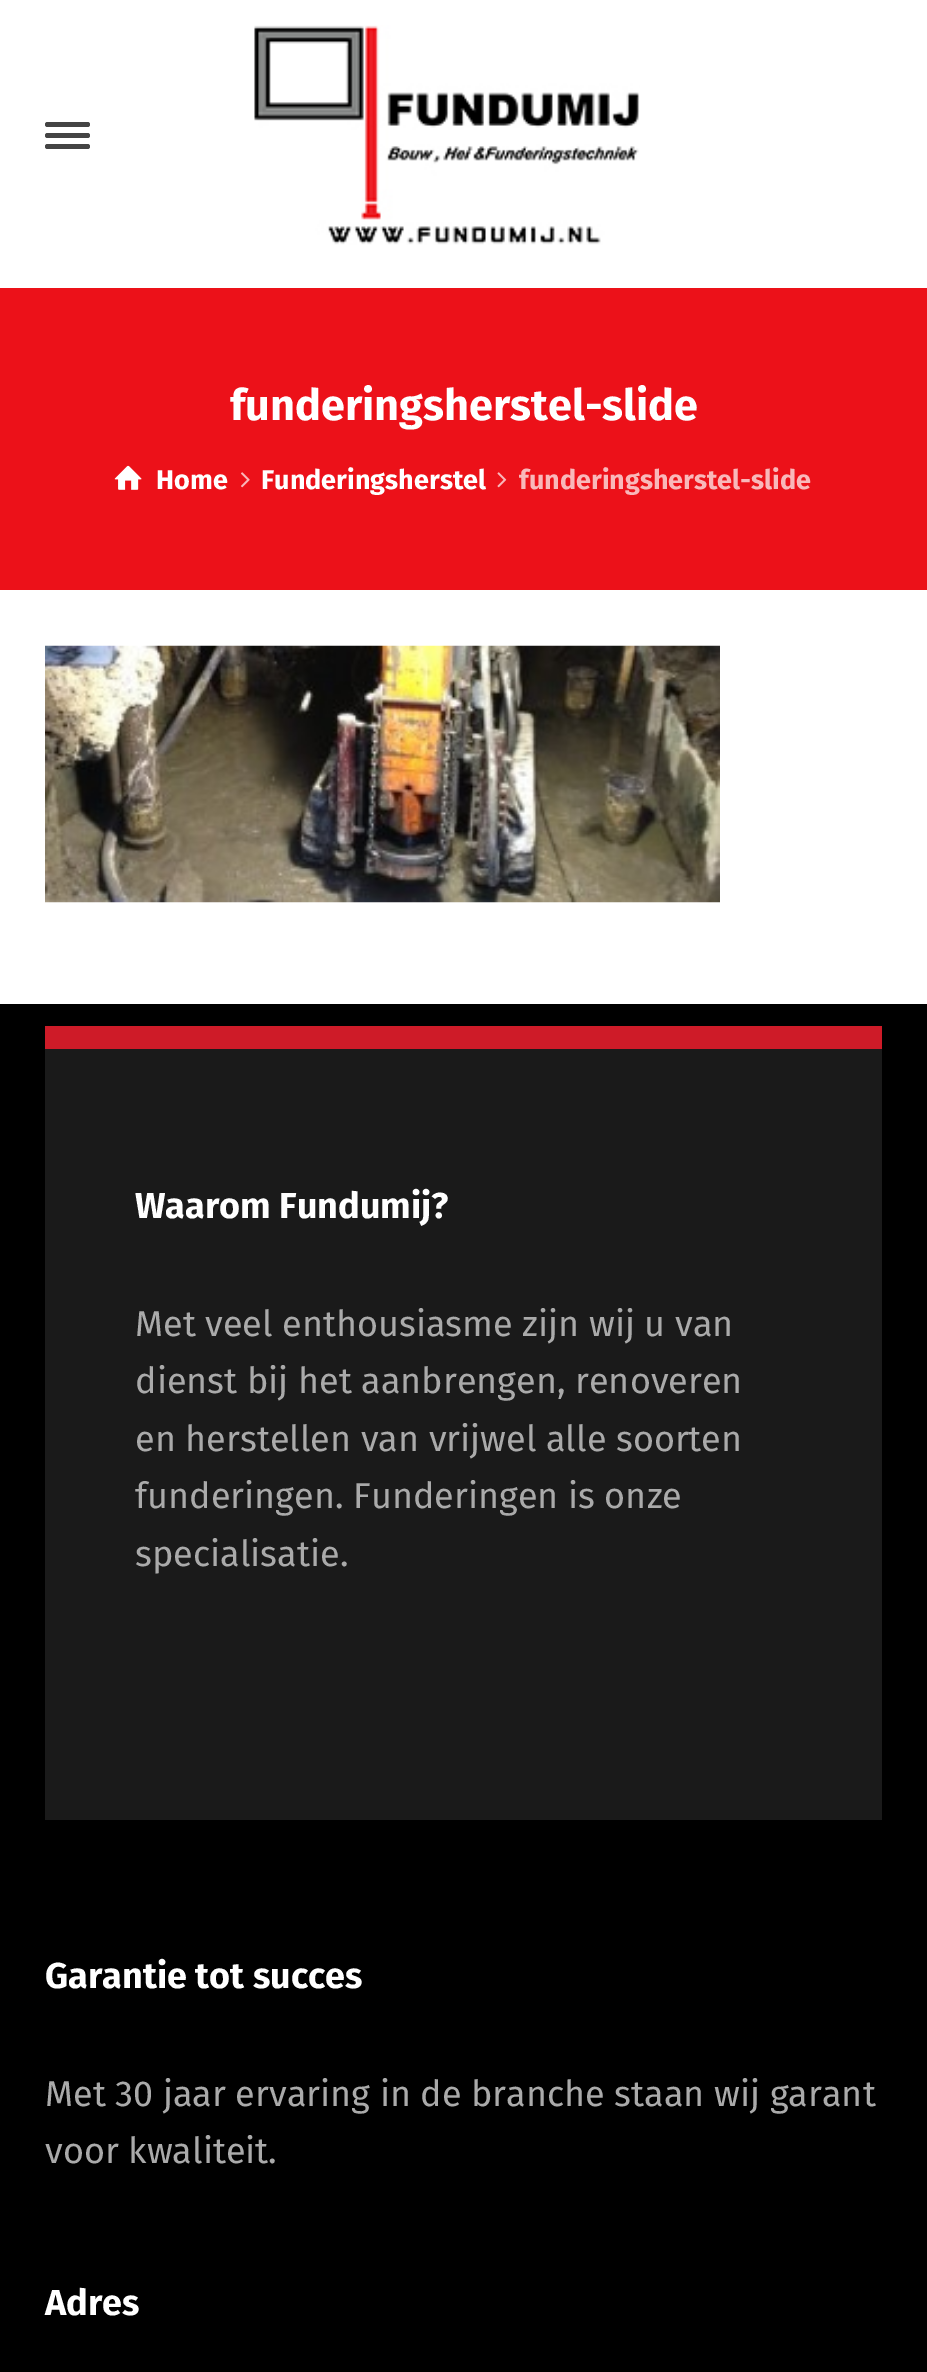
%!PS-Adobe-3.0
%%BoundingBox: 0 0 927 2372
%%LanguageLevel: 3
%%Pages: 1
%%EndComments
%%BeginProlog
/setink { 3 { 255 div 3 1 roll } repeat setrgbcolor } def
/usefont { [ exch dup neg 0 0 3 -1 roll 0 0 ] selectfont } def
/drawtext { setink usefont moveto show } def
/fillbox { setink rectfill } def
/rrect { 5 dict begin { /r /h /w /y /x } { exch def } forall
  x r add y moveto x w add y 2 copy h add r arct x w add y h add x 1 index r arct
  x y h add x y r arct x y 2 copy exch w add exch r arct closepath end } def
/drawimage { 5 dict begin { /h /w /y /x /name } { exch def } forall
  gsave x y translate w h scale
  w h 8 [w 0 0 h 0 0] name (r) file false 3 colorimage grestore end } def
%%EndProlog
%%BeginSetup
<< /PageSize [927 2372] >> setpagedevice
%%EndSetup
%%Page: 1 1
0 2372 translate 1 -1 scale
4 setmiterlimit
0 0 927 2372 255 255 255 fillbox
68 68 68 setink
45 122 45 5 2.5 rrect fill
45 133 45 5 2.5 rrect fill
45 144 45 5 2.5 rrect fill
(assets/img1.rgb) 254 25 386 220 drawimage
0 288 927 302 236 17 25 fillbox
(funderingsherstel-slide) 230 420 /FiraSans-Bold 43.25 255 255 255 drawtext
(assets/img2.rgb) 114 465 28 25 drawimage
(Home) 156 489 /FiraSans-Bold 27 255 255 255 drawtext
(assets/img3.rgb) 241 472 9 16 drawimage
(Funderingsherstel) 261 489 /FiraSans-Bold 27 255 255 255 drawtext
(assets/img4.rgb) 497 472 10 16 drawimage
(funderingsherstel-slide) 519 489 /FiraSans-Bold 27 249 184 186 drawtext
(assets/img5.rgb) 45 645 675 258 drawimage
0 1004 927 1368 0 0 0 fillbox
45 1049 837 771 26 26 26 fillbox
45 1026 837 23 206 27 40 fillbox
(Waarom Fundumij?) 135 1218 /FiraSans-Bold 36 255 255 255 drawtext
(Met veel enthousiasme zijn wij u van) 135 1336 /FiraSans-Regular 36 170 170 170 drawtext
(dienst bij het aanbrengen, renoveren) 135 1393 /FiraSans-Regular 36 170 170 170 drawtext
(en herstellen van vrijwel alle soorten) 135 1451 /FiraSans-Regular 36 170 170 170 drawtext
(funderingen. Funderingen is onze) 135 1508 /FiraSans-Regular 36 170 170 170 drawtext
(specialisatie.) 135 1566 /FiraSans-Regular 36 170 170 170 drawtext
(Garantie tot succes) 45 1988 /FiraSans-Bold 36 255 255 255 drawtext
(Met 30 jaar ervaring in de branche staan wij garant) 45 2106 /FiraSans-Regular 36 170 170 170 drawtext
(voor kwaliteit.) 45 2163 /FiraSans-Regular 36 170 170 170 drawtext
(Adres) 45 2315 /FiraSans-Bold 36 255 255 255 drawtext
showpage
%%EOF
